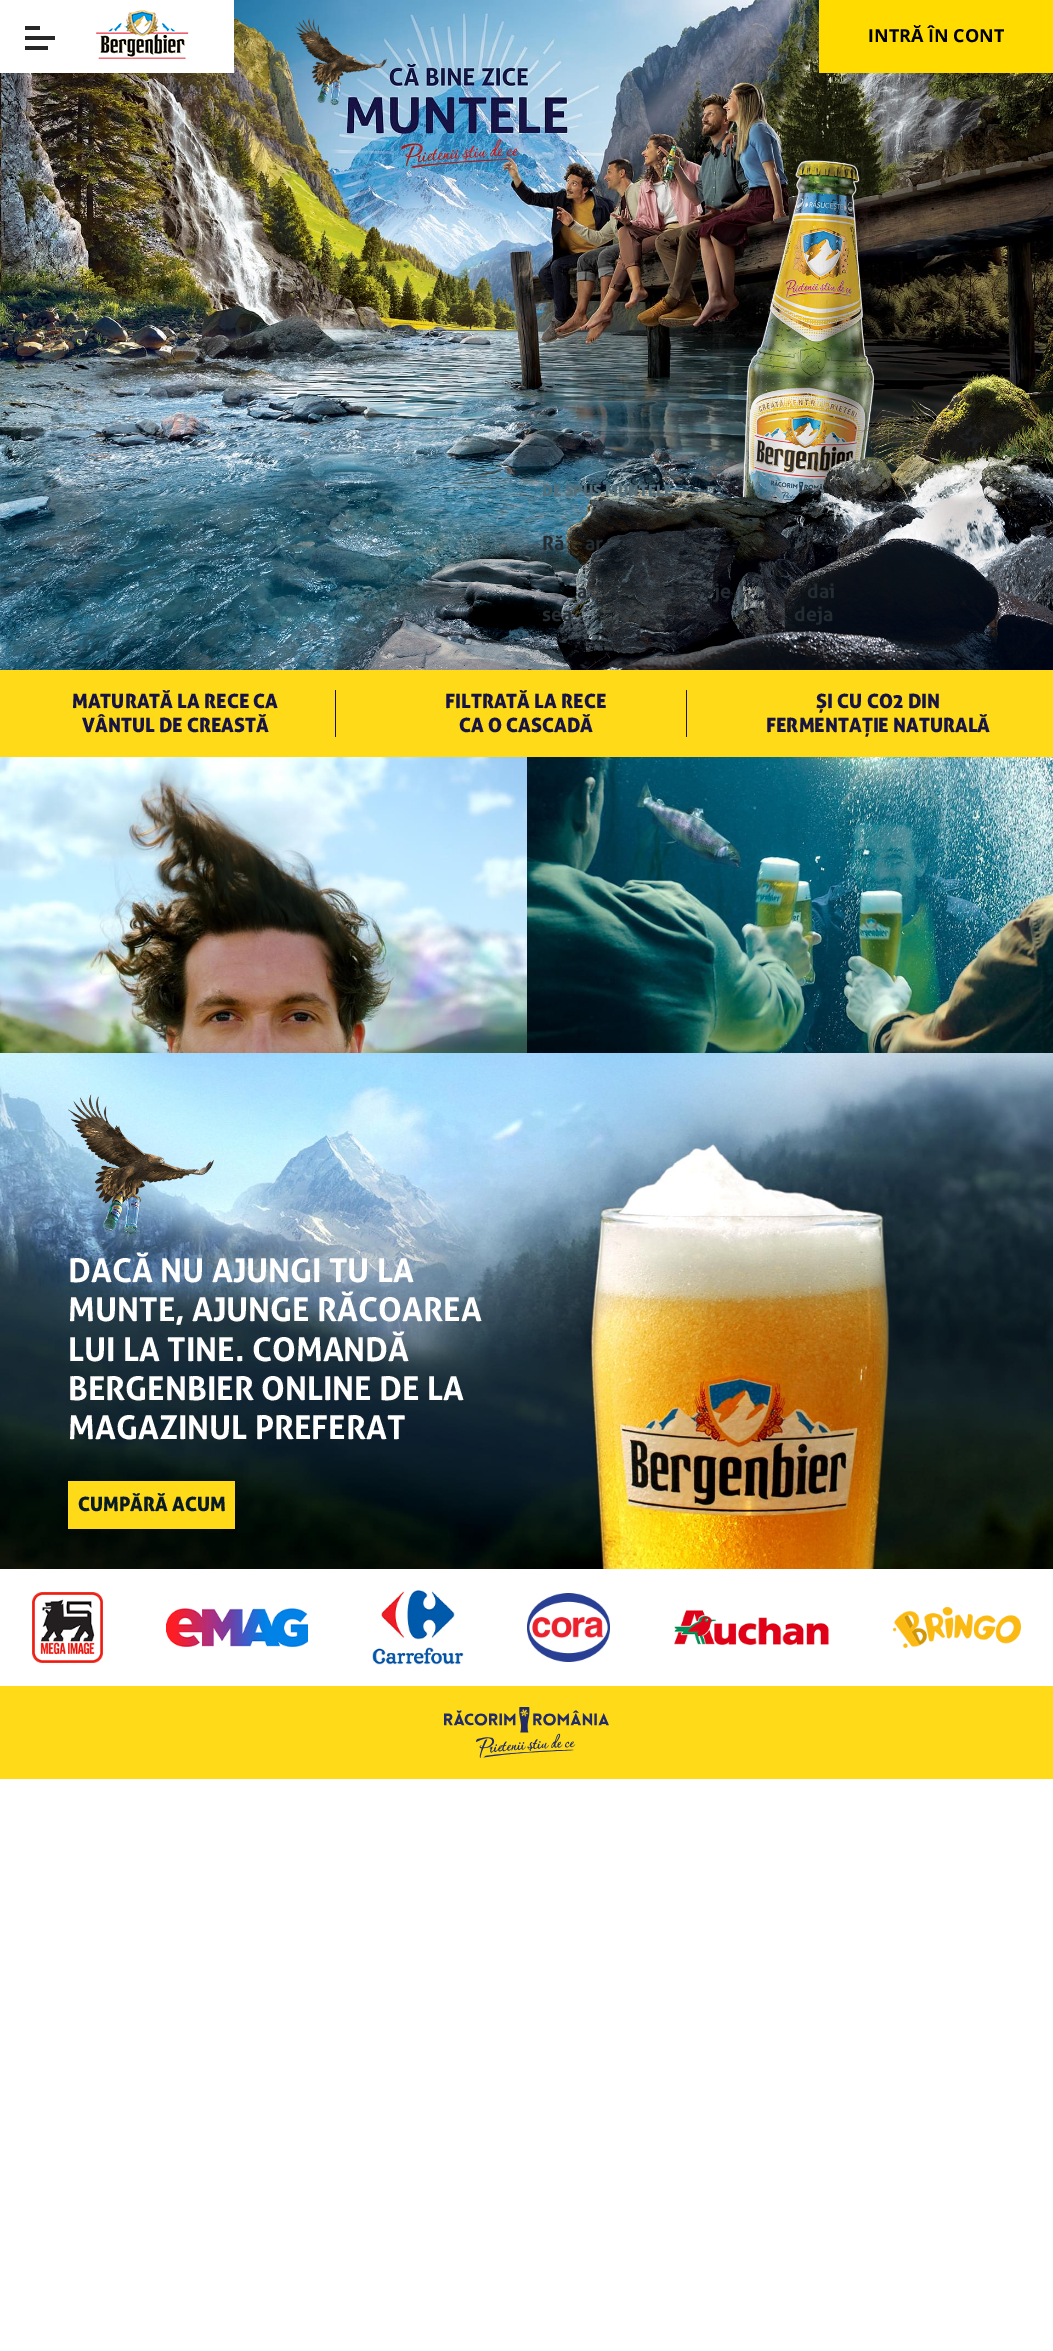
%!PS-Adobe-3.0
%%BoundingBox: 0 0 1053 2351
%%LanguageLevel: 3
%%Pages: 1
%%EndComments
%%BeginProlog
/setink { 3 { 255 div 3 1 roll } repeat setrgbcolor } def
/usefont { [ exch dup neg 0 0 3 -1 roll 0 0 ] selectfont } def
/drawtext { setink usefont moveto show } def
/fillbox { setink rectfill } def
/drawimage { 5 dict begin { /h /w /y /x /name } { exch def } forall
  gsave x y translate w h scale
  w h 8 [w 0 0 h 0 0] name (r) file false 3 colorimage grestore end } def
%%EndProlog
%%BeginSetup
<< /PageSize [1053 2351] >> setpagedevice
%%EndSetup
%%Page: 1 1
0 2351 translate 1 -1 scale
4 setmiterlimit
0 0 1053 2351 255 255 255 fillbox
(assets/img2.rgb) 0 0 1053 670 drawimage
0 0 234 73 255 255 255 fillbox
25 26 15 4 39 39 39 fillbox
25 36 30 4 39 39 39 fillbox
25 46 23 4 39 39 39 fillbox
(assets/img1.rgb) 96 10 93 49 drawimage
819 0 234 73 255 219 0 fillbox
(INTRĂ ÎN CONT) 868 42 /OpenSans-Bold 18 0 0 0 drawtext
(assets/img3.rgb) 295 17 92 88 drawimage
(assets/img4.rgb) 742 160 132 388 drawimage
(assets/img5.rgb) 333 329 720 341 drawimage
(DE SPUS MUNTELE) 542 496 /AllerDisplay-Regular 15.75 83 110 121 drawtext
(Ră) 542 550 /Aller-Bold 19.75 36 44 49 drawtext
(ar) 585 550 /Aller-Bold 19.75 36 44 49 drawtext
(a) 577 598 /Aller-Bold 19.75 36 44 49 drawtext
(je) 714 598 /Aller-Bold 19.75 36 44 49 drawtext
(dai) 807 598 /Aller-Bold 19.75 36 44 49 drawtext
(sea) 542 621 /Aller-Bold 19.75 36 44 49 drawtext
(deja) 794 621 /Aller-Bold 19.75 36 44 49 drawtext
0 670 1053 87 254 218 25 fillbox
335 690 1 47 23 20 68 fillbox
(MATURATĂ LA RECE CA) 72 708 /AllerDisplay-Regular 19.75 23 20 68 drawtext
(VÂNTUL DE CREASTĂ) 82 732 /AllerDisplay-Regular 19.75 23 20 68 drawtext
686 690 1 47 23 20 68 fillbox
(FILTRATĂ LA RECE) 445 708 /AllerDisplay-Regular 19.75 23 20 68 drawtext
(CA O CASCADĂ) 459 732 /AllerDisplay-Regular 19.75 23 20 68 drawtext
(ȘI CU CO2 DIN) 816 708 /AllerDisplay-Regular 19.75 23 20 68 drawtext
(FERMENTAȚIE NATURALĂ) 766 732 /AllerDisplay-Regular 19.75 23 20 68 drawtext
(assets/img6.rgb) 0 757 527 296 drawimage
(assets/img7.rgb) 527 757 526 296 drawimage
(assets/img8.rgb) 0 1053 1053 516 drawimage
(assets/img9.rgb) 68 1094 146 140 drawimage
(DACĂ NU AJUNGI TU LA) 68 1282 /Aller-Bold 32.9 255 255 255 drawtext
(MUNTE, AJUNGE RĂCOAREA) 68 1321 /Aller-Bold 32.9 255 255 255 drawtext
(LUI LA TINE. COMANDĂ) 68 1361 /Aller-Bold 32.9 255 255 255 drawtext
(BERGENBIER ONLINE DE LA) 68 1400 /Aller-Bold 32.9 255 255 255 drawtext
(MAGAZINUL PREFERAT) 68 1439 /Aller-Bold 32.9 255 255 255 drawtext
68 1481 167 48 254 218 25 fillbox
(CUMPĂRĂ ACUM) 78 1511 /AllerDisplay-Regular 19.75 9 28 38 drawtext
(assets/img10.rgb) 32 1592 71 71 drawimage
(assets/img11.rgb) 166 1608 142 39 drawimage
(assets/img12.rgb) 372 1590 92 75 drawimage
(assets/img13.rgb) 527 1593 83 69 drawimage
(assets/img14.rgb) 674 1610 156 35 drawimage
(assets/img15.rgb) 893 1607 128 41 drawimage
0 1686 1053 93 254 218 25 fillbox
(assets/img16.rgb) 444 1707 165 51 drawimage
showpage
%%EOF
